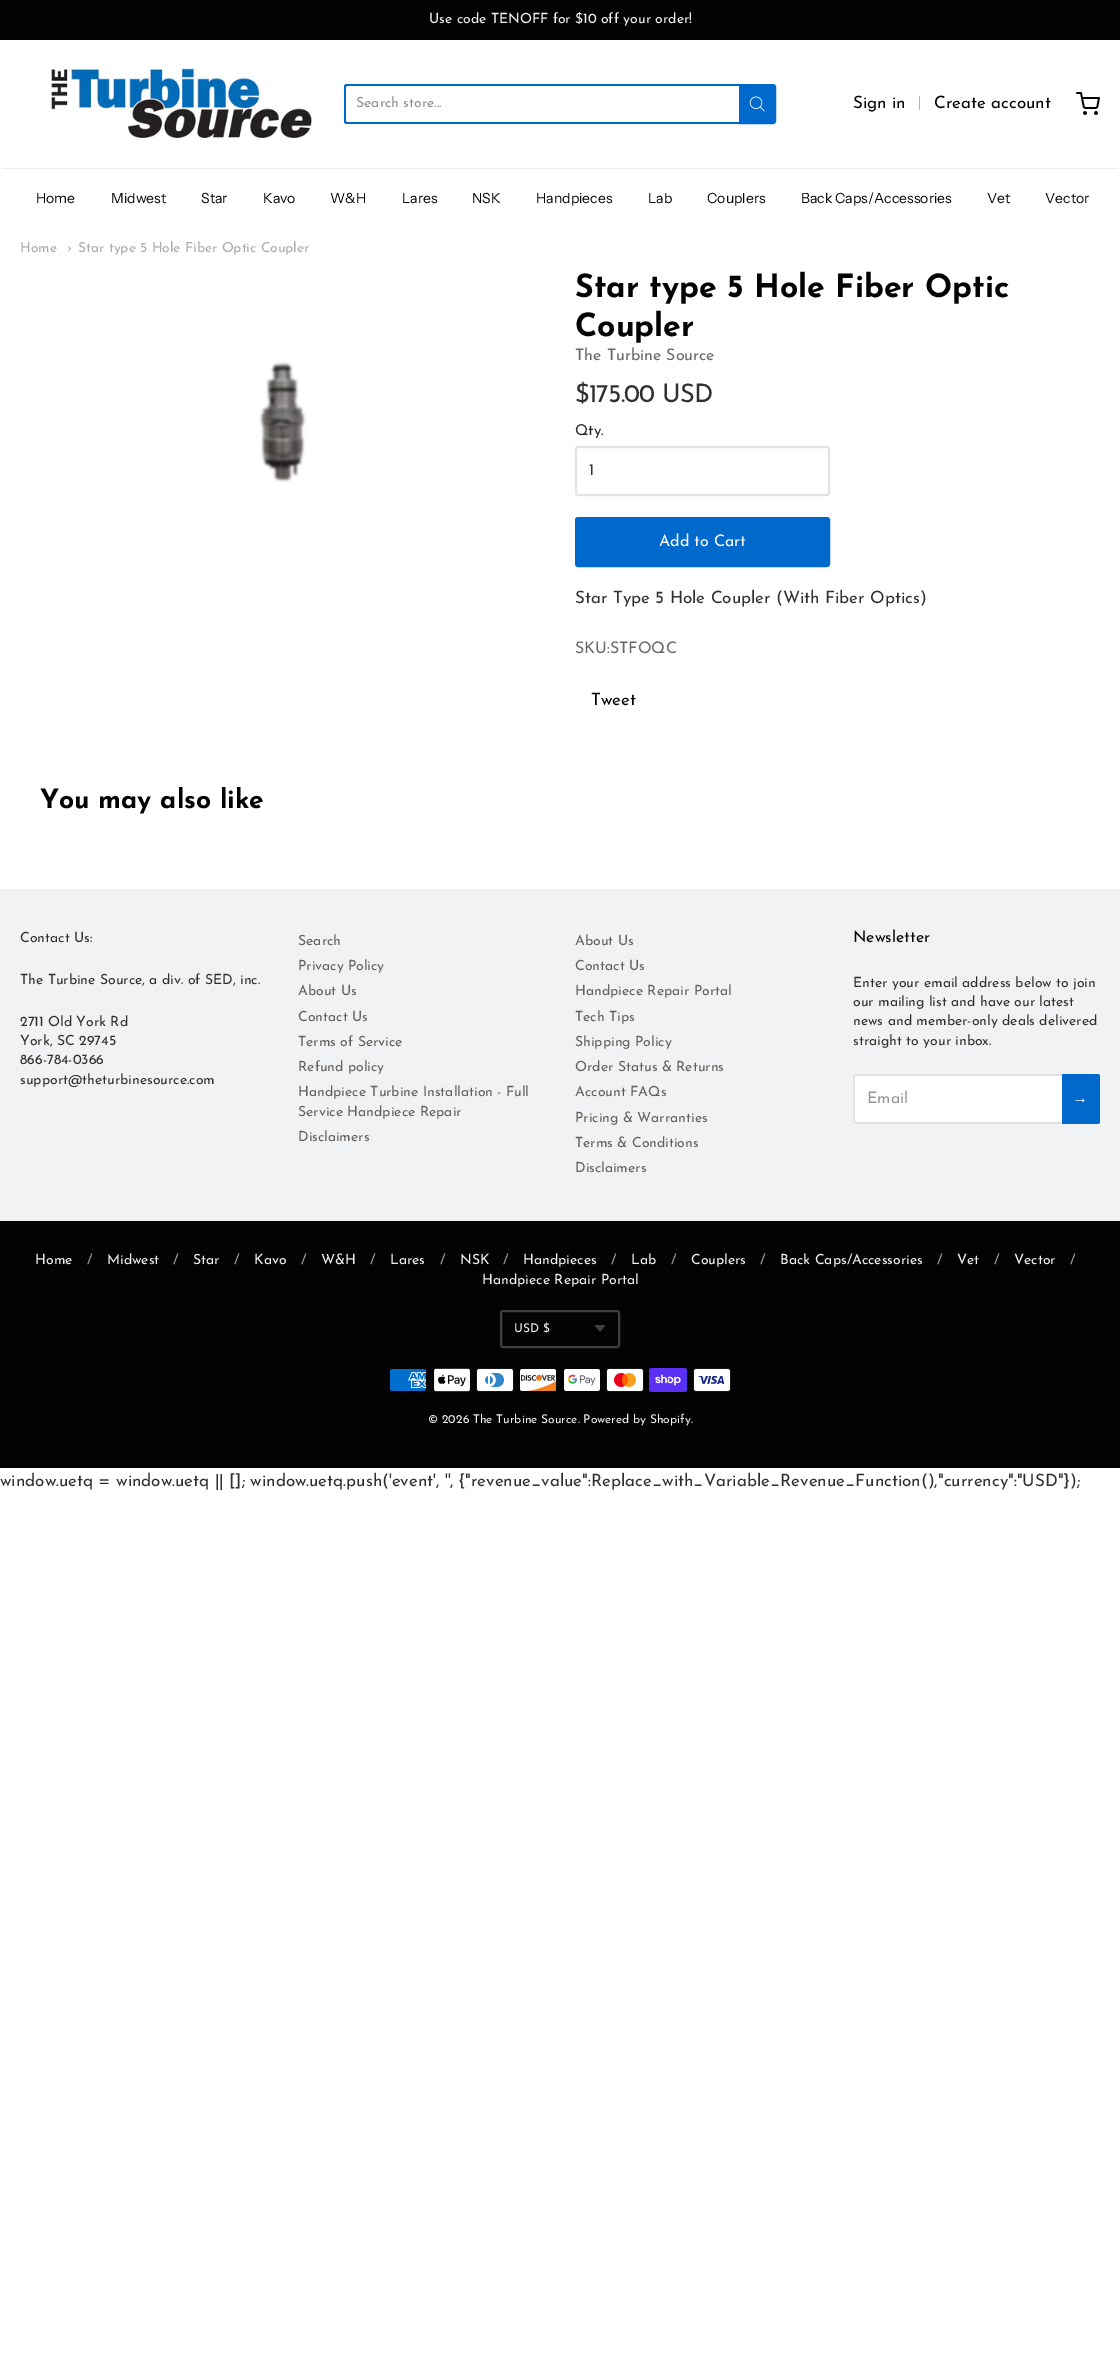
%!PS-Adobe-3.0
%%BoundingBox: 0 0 1120 2359
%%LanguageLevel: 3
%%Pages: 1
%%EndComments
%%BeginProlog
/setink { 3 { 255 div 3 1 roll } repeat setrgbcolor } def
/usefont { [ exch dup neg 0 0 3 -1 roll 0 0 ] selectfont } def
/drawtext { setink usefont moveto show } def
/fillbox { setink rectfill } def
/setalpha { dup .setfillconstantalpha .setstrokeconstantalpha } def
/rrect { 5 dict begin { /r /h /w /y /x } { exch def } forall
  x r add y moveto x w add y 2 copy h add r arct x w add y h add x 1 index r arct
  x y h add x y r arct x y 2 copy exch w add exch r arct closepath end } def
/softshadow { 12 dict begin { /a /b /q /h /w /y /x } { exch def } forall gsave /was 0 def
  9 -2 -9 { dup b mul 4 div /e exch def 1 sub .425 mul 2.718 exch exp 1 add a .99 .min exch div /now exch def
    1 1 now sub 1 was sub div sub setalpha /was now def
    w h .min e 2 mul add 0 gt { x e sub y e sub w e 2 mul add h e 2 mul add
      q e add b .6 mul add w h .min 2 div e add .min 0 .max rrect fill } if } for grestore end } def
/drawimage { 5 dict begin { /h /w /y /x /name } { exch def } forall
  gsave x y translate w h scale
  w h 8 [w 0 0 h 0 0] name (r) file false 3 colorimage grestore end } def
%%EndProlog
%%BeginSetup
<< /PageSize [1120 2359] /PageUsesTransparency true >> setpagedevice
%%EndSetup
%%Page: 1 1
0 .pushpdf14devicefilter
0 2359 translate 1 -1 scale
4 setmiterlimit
0 0 1120 2359 255 255 255 fillbox
0 0 1120 40 3 3 3 fillbox
(Use code TENOFF for $10 off your order!) 429 23 /JosefinSans-Regular 14 241 242 243 drawtext
gsave
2 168 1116 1 rectclip
0 0 0 setink
2 44 1116 124 0 1 0.2 softshadow
grestore
(assets/img1.rgb) 51 68 262 71 drawimage
0 105 204 setink
347 84 moveto 739 84 lineto 739 124 lineto 347 124 lineto 345 124 344 123 344 121 curveto 344 87 lineto 344 85 345 84 347 84 curveto closepath 347 86 moveto 739 86 lineto 739 122 lineto 347 122 lineto 346 122 346 122 346 121 curveto 346 87 lineto 346 86 346 86 347 86 curveto closepath eofill
(Search store...) 356 107 /JosefinSans-Regular 14 143 143 143 drawtext
0 105 204 setink
740 85 moveto 773 85 lineto 774 85 775 86 775 87 curveto 775 121 lineto 775 122 774 123 773 123 curveto 740 123 lineto closepath gsave fill grestore
2 setlinewidth
stroke
(assets/img2.rgb) 749 96 16 16 drawimage
(Sign in) 853 108 /JosefinSans-Regular 17 3 3 3 drawtext
919 96 1 14 179 179 179 fillbox
(Create account) 934 108 /JosefinSans-Regular 17 3 3 3 drawtext
(assets/img3.rgb) 1076 92 24 23 drawimage
(Home) 36 203 /InstrumentSans-Regular 14 3 3 3 drawtext
(Midwest) 111 203 /InstrumentSans-Regular 14 3 3 3 drawtext
(Star) 201 203 /InstrumentSans-Regular 14 3 3 3 drawtext
(Kavo) 263 203 /InstrumentSans-Regular 14 3 3 3 drawtext
(W&H) 330 203 /InstrumentSans-Regular 14 3 3 3 drawtext
(Lares) 402 203 /InstrumentSans-Regular 14 3 3 3 drawtext
(NSK) 472 203 /InstrumentSans-Regular 14 3 3 3 drawtext
(Handpieces) 536 203 /InstrumentSans-Regular 14 3 3 3 drawtext
(Lab) 648 203 /InstrumentSans-Regular 14 3 3 3 drawtext
(Couplers) 707 203 /InstrumentSans-Regular 14 3 3 3 drawtext
(Back Caps/Accessories) 801 203 /InstrumentSans-Regular 14 3 3 3 drawtext
(Vet) 987 203 /InstrumentSans-Regular 14 3 3 3 drawtext
(Vector) 1045 203 /InstrumentSans-Regular 14 3 3 3 drawtext
(Home) 20 252 /JosefinSans-Regular 13.8 169 170 170 drawtext
(›) 67 252 /JosefinSans-Regular 13.8 169 170 170 drawtext
(Star type 5 Hole Fiber Optic Coupler) 78 252 /JosefinSans-Regular 13.8 169 170 170 drawtext
(assets/img4.rgb) 259 361 48 122 drawimage
(Star type 5 Hole Fiber Optic) 575 297 /JosefinSans-Bold 32 3 3 3 drawtext
(Coupler) 575 336 /JosefinSans-Bold 32 3 3 3 drawtext
(The Turbine Source) 575 360 /JosefinSans-Regular 16 105 105 105 drawtext
/JosefinSans-Regular 25.5 usefont
48 48 48 setink
575 402 moveto -0.75 0 ($175.00 USD) ashow
(Qty.) 575 435 /JosefinSans-Regular 15 42 43 43 drawtext
225 227 228 setink
576 447 253 48 2 rrect stroke
(1) 589 475 /JosefinSans-Regular 16 48 48 48 drawtext
0 105 204 setink
576 518 253 48 2 rrect gsave fill grestore
stroke
(Add to Cart) 659 546 /JosefinSans-Regular 16 255 255 255 drawtext
(Star Type 5 Hole Coupler \(With Fiber Optics\)) 575 603 /JosefinSans-Regular 17 48 48 48 drawtext
(SKU:STFOQC) 575 653 /JosefinSans-Regular 16 105 105 105 drawtext
(Tweet) 591 705 /JosefinSans-Regular 17 3 3 3 drawtext
(You may also like) 40 808 /JosefinSans-Bold 26.5 3 3 3 drawtext
0 889 1120 332 241 242 243 fillbox
(Contact Us:) 20 942 /JosefinSans-Regular 14 48 48 48 drawtext
(The Turbine Source, a div. of SED, inc.) 20 984 /JosefinSans-Regular 14 48 48 48 drawtext
(2711 Old York Rd) 20 1026 /JosefinSans-Regular 14 48 48 48 drawtext
(York, SC 29745) 20 1045 /JosefinSans-Regular 14 48 48 48 drawtext
(866-784-0366) 20 1064 /JosefinSans-Regular 14 48 48 48 drawtext
(support@theturbinesource.com) 20 1084 /JosefinSans-Regular 14 48 48 48 drawtext
(Search) 298 945 /JosefinSans-Regular 14 96 96 96 drawtext
(Privacy Policy) 298 970 /JosefinSans-Regular 14 96 96 96 drawtext
(About Us) 298 995 /JosefinSans-Regular 14 96 96 96 drawtext
(Contact Us) 298 1021 /JosefinSans-Regular 14 96 96 96 drawtext
(Terms of Service) 298 1046 /JosefinSans-Regular 14 96 96 96 drawtext
(Refund policy) 298 1071 /JosefinSans-Regular 14 96 96 96 drawtext
(Handpiece Turbine Installation - Full) 298 1096 /JosefinSans-Regular 14 96 96 96 drawtext
(Service Handpiece Repair) 298 1116 /JosefinSans-Regular 14 96 96 96 drawtext
(Disclaimers) 298 1141 /JosefinSans-Regular 14 96 96 96 drawtext
(About Us) 575 945 /JosefinSans-Regular 14 96 96 96 drawtext
(Contact Us) 575 970 /JosefinSans-Regular 14 96 96 96 drawtext
(Handpiece Repair Portal) 575 995 /JosefinSans-Regular 14 96 96 96 drawtext
(Tech Tips) 575 1021 /JosefinSans-Regular 14 96 96 96 drawtext
(Shipping Policy) 575 1046 /JosefinSans-Regular 14 96 96 96 drawtext
(Order Status & Returns) 575 1071 /JosefinSans-Regular 14 96 96 96 drawtext
(Account FAQs) 575 1096 /JosefinSans-Regular 14 96 96 96 drawtext
(Pricing & Warranties) 575 1122 /JosefinSans-Regular 14 96 96 96 drawtext
(Terms & Conditions) 575 1147 /JosefinSans-Regular 14 96 96 96 drawtext
(Disclaimers) 575 1172 /JosefinSans-Regular 14 96 96 96 drawtext
(Newsletter) 853 942 /JosefinSans-Regular 16 3 3 3 drawtext
(Enter your email address below to join) 853 987 /JosefinSans-Regular 14 48 48 48 drawtext
(our mailing list and have our latest) 853 1006 /JosefinSans-Regular 14 48 48 48 drawtext
(news and member-only deals delivered) 853 1025 /JosefinSans-Regular 14 48 48 48 drawtext
(straight to your inbox.) 853 1045 /JosefinSans-Regular 14 48 48 48 drawtext
255 255 255 setink
856 1074 moveto 1062 1074 lineto 1062 1124 lineto 856 1124 lineto 854.5 1124 853 1122.5 853 1121 curveto 853 1077 lineto 853 1075.5 854.5 1074 856 1074 curveto closepath fill
225 227 228 setink
856 1074 moveto 1062 1074 lineto 1062 1124 lineto 856 1124 lineto 854 1124 853 1123 853 1121 curveto 853 1077 lineto 853 1075 854 1074 856 1074 curveto closepath 856 1076 moveto 1062 1076 lineto 1062 1122 lineto 856 1122 lineto 855 1122 855 1122 855 1121 curveto 855 1077 lineto 855 1076 855 1076 856 1076 curveto closepath eofill
(Email) 867 1103 /JosefinSans-Regular 16 152 152 152 drawtext
0 105 204 setink
1062 1074 moveto 1097 1074 lineto 1098.5 1074 1100 1075.5 1100 1077 curveto 1100 1121 lineto 1100 1122.5 1098.5 1124 1097 1124 curveto 1062 1124 lineto closepath fill
1062 1074 moveto 1097 1074 lineto 1099 1074 1100 1075 1100 1077 curveto 1100 1121 lineto 1100 1123 1099 1124 1097 1124 curveto 1062 1124 lineto closepath 1062 1076 moveto 1097 1076 lineto 1098 1076 1098 1076 1098 1077 curveto 1098 1121 lineto 1098 1122 1098 1122 1097 1122 curveto 1062 1122 lineto closepath eofill
(→) 1072 1103 /LiberationSans-Regular 16 255 255 255 drawtext
0 1221 1120 247 3 3 3 fillbox
(Home) 35 1264 /JosefinSans-Regular 14 241 242 243 drawtext
(/) 87 1264 /JosefinSans-Regular 14 169 170 170 drawtext
(Midwest) 107 1264 /JosefinSans-Regular 14 241 242 243 drawtext
(/) 173 1264 /JosefinSans-Regular 14 169 170 170 drawtext
(Star) 193 1264 /JosefinSans-Regular 14 241 242 243 drawtext
(/) 234 1264 /JosefinSans-Regular 14 169 170 170 drawtext
(Kavo) 254 1264 /JosefinSans-Regular 14 241 242 243 drawtext
(/) 301 1264 /JosefinSans-Regular 14 169 170 170 drawtext
(W&H) 321 1264 /JosefinSans-Regular 14 241 242 243 drawtext
(/) 370 1264 /JosefinSans-Regular 14 169 170 170 drawtext
(Lares) 390 1264 /JosefinSans-Regular 14 241 242 243 drawtext
(/) 440 1264 /JosefinSans-Regular 14 169 170 170 drawtext
(NSK) 460 1264 /JosefinSans-Regular 14 241 242 243 drawtext
(/) 503 1264 /JosefinSans-Regular 14 169 170 170 drawtext
(Handpieces) 523 1264 /JosefinSans-Regular 14 241 242 243 drawtext
(/) 611 1264 /JosefinSans-Regular 14 169 170 170 drawtext
(Lab) 631 1264 /JosefinSans-Regular 14 241 242 243 drawtext
(/) 671 1264 /JosefinSans-Regular 14 169 170 170 drawtext
(Couplers) 691 1264 /JosefinSans-Regular 14 241 242 243 drawtext
(/) 760 1264 /JosefinSans-Regular 14 169 170 170 drawtext
(Back Caps/Accessories) 780 1264 /JosefinSans-Regular 14 241 242 243 drawtext
(/) 937 1264 /JosefinSans-Regular 14 169 170 170 drawtext
(Vet) 957 1264 /JosefinSans-Regular 14 241 242 243 drawtext
(/) 994 1264 /JosefinSans-Regular 14 169 170 170 drawtext
(Vector) 1014 1264 /JosefinSans-Regular 14 241 242 243 drawtext
(/) 1070 1264 /JosefinSans-Regular 14 169 170 170 drawtext
(Handpiece Repair Portal) 482 1284 /JosefinSans-Regular 14 241 242 243 drawtext
(assets/img5.rgb) 594 1325 12 7 drawimage
63 63 63 setink
501 1311 118 36 2 rrect stroke
(USD $) 514 1332 /JosefinSans-Regular 12 241 242 243 drawtext
(assets/img6.rgb) 390 1369 36 22 drawimage
(assets/img7.rgb) 434 1368 36 24 drawimage
(assets/img8.rgb) 476 1368 38 24 drawimage
(assets/img9.rgb) 520 1369 37 22 drawimage
(assets/img10.rgb) 564 1369 36 22 drawimage
(assets/img11.rgb) 606 1368 38 24 drawimage
(assets/img12.rgb) 649 1368 38 24 drawimage
(assets/img13.rgb) 693 1368 38 24 drawimage
(© 2026 The Turbine Source. Powered by Shopify.) 428 1423 /JosefinSans-Regular 12 241 242 243 drawtext
(window.uetq = window.uetq || []; window.uetq.push\('event', '', {"revenue_value":Replace_with_Variable_Revenue_Function\(\),"currency":"USD"}\);) 0 1486 /JosefinSans-Regular 17 48 48 48 drawtext
.poppdf14devicefilter showpage
%%EOF
